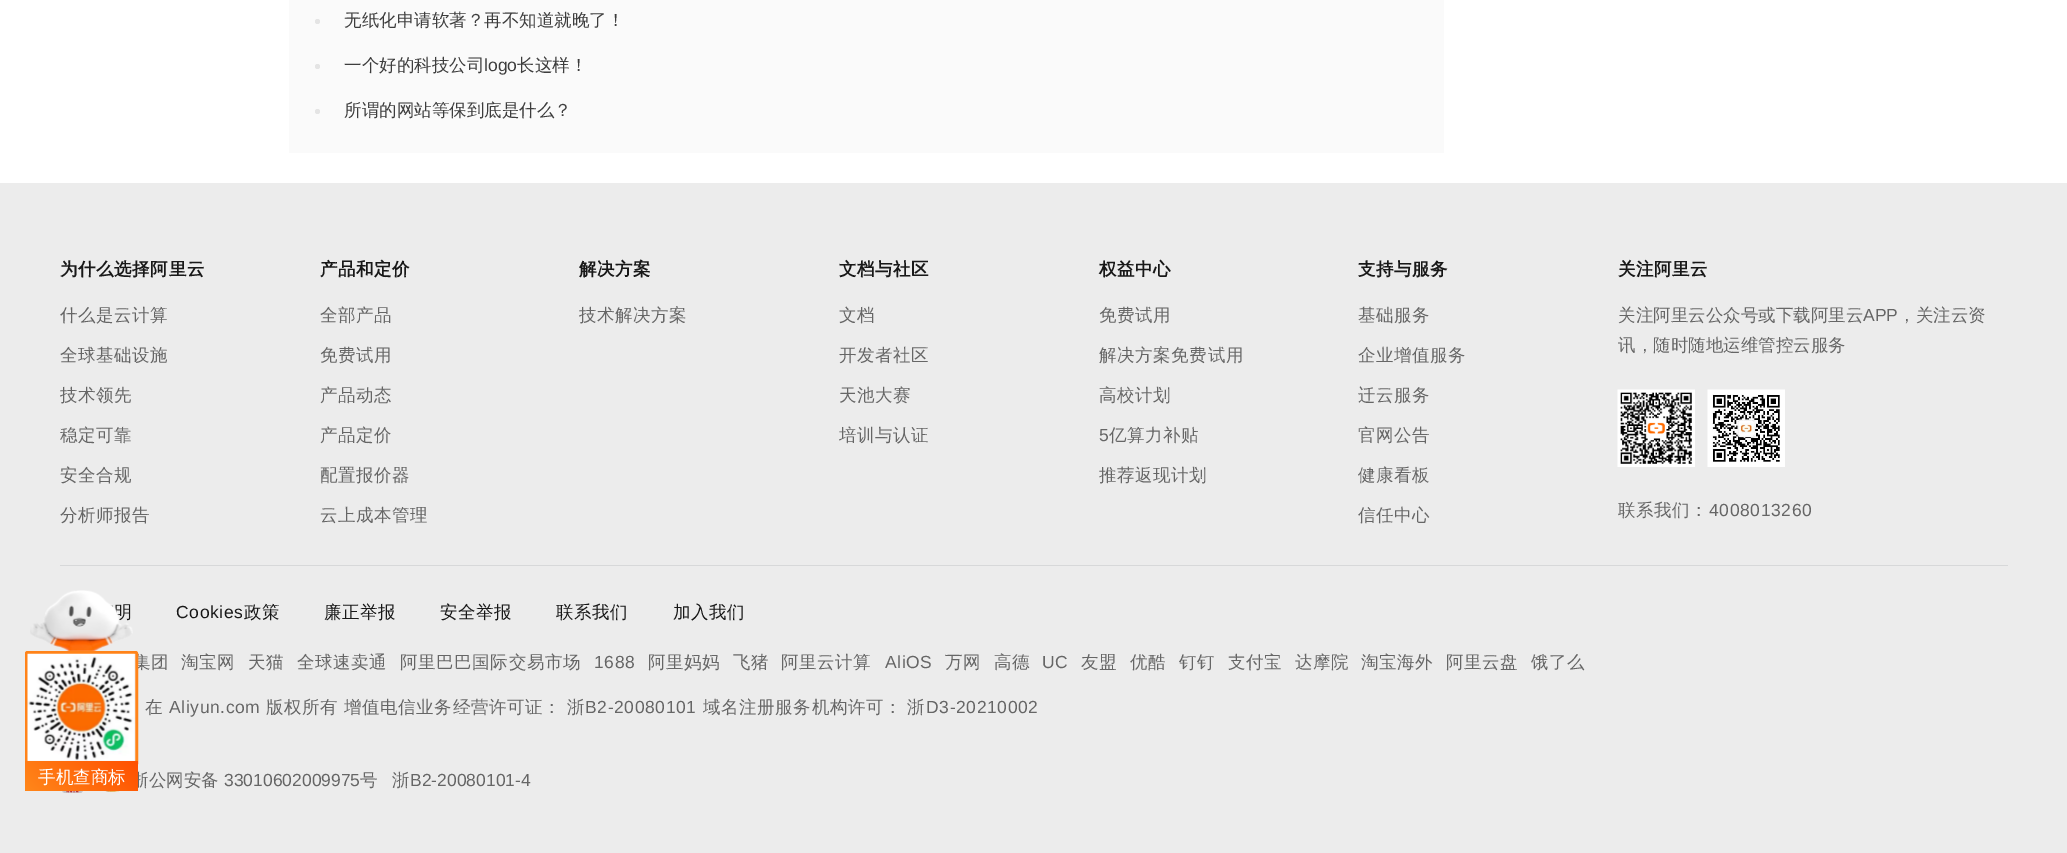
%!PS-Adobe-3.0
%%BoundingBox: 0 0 2067 853
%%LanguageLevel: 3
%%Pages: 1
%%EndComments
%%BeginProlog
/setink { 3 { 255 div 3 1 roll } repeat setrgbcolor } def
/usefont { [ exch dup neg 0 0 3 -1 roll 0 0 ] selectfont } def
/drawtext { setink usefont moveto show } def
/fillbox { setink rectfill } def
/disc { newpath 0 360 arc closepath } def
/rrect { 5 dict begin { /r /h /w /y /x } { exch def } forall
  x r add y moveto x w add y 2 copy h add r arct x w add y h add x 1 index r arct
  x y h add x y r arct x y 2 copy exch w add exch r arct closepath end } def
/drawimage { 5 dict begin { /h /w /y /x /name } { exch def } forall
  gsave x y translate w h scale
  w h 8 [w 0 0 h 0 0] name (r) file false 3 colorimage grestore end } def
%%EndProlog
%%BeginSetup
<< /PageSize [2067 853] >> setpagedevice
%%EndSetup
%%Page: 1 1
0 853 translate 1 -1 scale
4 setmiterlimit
0 0 2067 853 255 255 255 fillbox
289 0 1155 153 250 250 250 fillbox
228 228 228 setink
317.5 21.5 2.5 disc fill
(无纸化申请软著？再不知道就晚了！) 344 26 /WenQuanYiZenHei-Medium 17.5 61 61 61 drawtext
228 228 228 setink
317.5 66.5 2.5 disc fill
(一个好的科技公司) 344 71 /WenQuanYiZenHei-Medium 17.5 61 61 61 drawtext
(logo) 484 71 /LiberationSans-Regular 17.5 61 61 61 drawtext
(长这样！) 517 71 /WenQuanYiZenHei-Medium 17.5 61 61 61 drawtext
228 228 228 setink
317.5 111.5 2.5 disc fill
(所谓的网站等保到底是什么？) 344 116 /WenQuanYiZenHei-Medium 17.5 61 61 61 drawtext
0 183 2067 670 236 236 236 fillbox
24 24 24 setink
114 618 moveto 0.6 0 (明) ashow
(assets/img1.rgb) 30 590 103 61 drawimage
102 102 102 setink
133 668 moveto 0.6 0 (集团) ashow
216 216 216 setink
27.5 652.5 moveto 135.5 652.5 lineto 136 652.5 136.5 653 136.5 653.5 curveto 136.5 762.5 lineto 26.5 762.5 lineto 26.5 653.5 lineto 26.5 653 27 652.5 27.5 652.5 curveto closepath gsave fill grestore
255 131 25 setink
3 setlinewidth
stroke
(assets/img2.rgb) 27 653 109 109 drawimage
(浙公网安备) 131 786 /WenQuanYiZenHei-Medium 17.5 102 102 102 drawtext
gsave 25 761 113 30 2.5 rrect clip newpath
<< /ShadingType 2 /ColorSpace /DeviceRGB /Coords [46 812 117 741] /Extend [true true] /Function << /FunctionType 2 /Domain [0 1] /C0 [1 0.529 0.102] /C1 [1 0.314 0] /N 1 >> >> shfill grestore
(手机查商标) 38 783 /WenQuanYiZenHei-Medium 17.5 255 255 255 drawtext
60 565 1948 1 215 216 217 fillbox
/WenQuanYiZenHei-Bold 17.5 usefont
24 24 24 setink
60 275 moveto 0.6 0 (为什么选择阿里云) ashow
/WenQuanYiZenHei-Medium 17.5 usefont
102 102 102 setink
60 321 moveto 0.6 0 (什么是云计算) ashow
60 361 moveto 0.6 0 (全球基础设施) ashow
60 401 moveto 0.6 0 (技术领先) ashow
60 441 moveto 0.6 0 (稳定可靠) ashow
60 481 moveto 0.6 0 (安全合规) ashow
60 521 moveto 0.6 0 (分析师报告) ashow
/WenQuanYiZenHei-Bold 17.5 usefont
24 24 24 setink
320 275 moveto 0.6 0 (产品和定价) ashow
/WenQuanYiZenHei-Medium 17.5 usefont
102 102 102 setink
320 321 moveto 0.6 0 (全部产品) ashow
320 361 moveto 0.6 0 (免费试用) ashow
320 401 moveto 0.6 0 (产品动态) ashow
320 441 moveto 0.6 0 (产品定价) ashow
320 481 moveto 0.6 0 (配置报价器) ashow
320 521 moveto 0.6 0 (云上成本管理) ashow
/WenQuanYiZenHei-Bold 17.5 usefont
24 24 24 setink
579 275 moveto 0.6 0 (解决方案) ashow
/WenQuanYiZenHei-Medium 17.5 usefont
102 102 102 setink
579 321 moveto 0.6 0 (技术解决方案) ashow
/WenQuanYiZenHei-Bold 17.5 usefont
24 24 24 setink
839 275 moveto 0.6 0 (文档与社区) ashow
/WenQuanYiZenHei-Medium 17.5 usefont
102 102 102 setink
839 321 moveto 0.6 0 (文档) ashow
839 361 moveto 0.6 0 (开发者社区) ashow
839 401 moveto 0.6 0 (天池大赛) ashow
839 441 moveto 0.6 0 (培训与认证) ashow
/WenQuanYiZenHei-Bold 17.5 usefont
24 24 24 setink
1099 275 moveto 0.6 0 (权益中心) ashow
/WenQuanYiZenHei-Medium 17.5 usefont
102 102 102 setink
1099 321 moveto 0.6 0 (免费试用) ashow
1099 361 moveto 0.6 0 (解决方案免费试用) ashow
1099 401 moveto 0.6 0 (高校计划) ashow
/LiberationSans-Regular 17.5 usefont
1099 441 moveto 0.6 0 (5) ashow
/WenQuanYiZenHei-Medium 17.5 usefont
1109 441 moveto 0.6 0 (亿算力补贴) ashow
1099 481 moveto 0.6 0 (推荐返现计划) ashow
/WenQuanYiZenHei-Bold 17.5 usefont
24 24 24 setink
1358 275 moveto 0.6 0 (支持与服务) ashow
/WenQuanYiZenHei-Medium 17.5 usefont
102 102 102 setink
1358 321 moveto 0.6 0 (基础服务) ashow
1358 361 moveto 0.6 0 (企业增值服务) ashow
1358 401 moveto 0.6 0 (迁云服务) ashow
1358 441 moveto 0.6 0 (官网公告) ashow
1358 481 moveto 0.6 0 (健康看板) ashow
1358 521 moveto 0.6 0 (信任中心) ashow
/WenQuanYiZenHei-Bold 17.5 usefont
24 24 24 setink
1618 275 moveto 0.6 0 (关注阿里云) ashow
(关注阿里云公众号或下载阿里云) 1618 321 /WenQuanYiZenHei-Medium 17.5 102 102 102 drawtext
(APP) 1863 321 /LiberationSans-Regular 17.5 102 102 102 drawtext
(，关注云资) 1898 321 /WenQuanYiZenHei-Medium 17.5 102 102 102 drawtext
(讯，随时随地运维管控云服务) 1618 351 /WenQuanYiZenHei-Medium 17.5 102 102 102 drawtext
(assets/img3.rgb) 1617 389 78 78 drawimage
(assets/img4.rgb) 1707 389 78 78 drawimage
1618 516 moveto 0.6 0 (联系我们：) ashow
/LiberationSans-Regular 17.5 usefont
1709 516 moveto 0.6 0 (4008013260) ashow
24 24 24 setink
176 618 moveto 0.6 0 (Cookies) ashow
/WenQuanYiZenHei-Medium 17.5 usefont
244 618 moveto 0.6 0 (政策) ashow
324 618 moveto 0.6 0 (廉正举报) ashow
440 618 moveto 0.6 0 (安全举报) ashow
556 618 moveto 0.6 0 (联系我们) ashow
673 618 moveto 0.6 0 (加入我们) ashow
102 102 102 setink
181 668 moveto 0.6 0 (淘宝网) ashow
248 668 moveto 0.6 0 (天猫) ashow
297 668 moveto 0.6 0 (全球速卖通) ashow
400 668 moveto 0.6 0 (阿里巴巴国际交易市场) ashow
/LiberationSans-Regular 17.5 usefont
594 668 moveto 0.6 0 (1688) ashow
/WenQuanYiZenHei-Medium 17.5 usefont
648 668 moveto 0.6 0 (阿里妈妈) ashow
733 668 moveto 0.6 0 (飞猪) ashow
781 668 moveto 0.6 0 (阿里云计算) ashow
/LiberationSans-Regular 17.5 usefont
885 668 moveto 0.6 0 (AliOS) ashow
/WenQuanYiZenHei-Medium 17.5 usefont
945 668 moveto 0.6 0 (万网) ashow
994 668 moveto 0.6 0 (高德) ashow
/LiberationSans-Regular 17.5 usefont
1042 668 moveto 0.6 0 (UC) ashow
/WenQuanYiZenHei-Medium 17.5 usefont
1081 668 moveto 0.6 0 (友盟) ashow
1130 668 moveto 0.6 0 (优酷) ashow
1179 668 moveto 0.6 0 (钉钉) ashow
1228 668 moveto 0.6 0 (支付宝) ashow
1295 668 moveto 0.6 0 (达摩院) ashow
1361 668 moveto 0.6 0 (淘宝海外) ashow
1446 668 moveto 0.6 0 (阿里云盘) ashow
1531 668 moveto 0.6 0 (饿了么) ashow
145 713 moveto 0.6 0 (在) ashow
/LiberationSans-Regular 17.5 usefont
169 713 moveto 0.6 0 (Aliyun.com) ashow
/WenQuanYiZenHei-Medium 17.5 usefont
266 713 moveto 0.6 0 (版权所有) ashow
344 713 moveto 0.6 0 (增值电信业务经营许可证：) ashow
567 713 moveto 0.6 0 (浙) ashow
/LiberationSans-Regular 17.5 usefont
585 713 moveto 0.6 0 (B2-20080101) ashow
/WenQuanYiZenHei-Medium 17.5 usefont
703 713 moveto 0.6 0 (域名注册服务机构许可：) ashow
907 713 moveto 0.6 0 (浙) ashow
/LiberationSans-Regular 17.5 usefont
926 713 moveto 0.6 0 (D3-20210002) ashow
(33010602009975) 224 786 /LiberationSans-Regular 17.5 102 102 102 drawtext
(号) 360 786 /WenQuanYiZenHei-Medium 17.5 102 102 102 drawtext
(assets/img5.rgb) 104 791 16 1 drawimage
(浙) 392 786 /WenQuanYiZenHei-Medium 17.5 102 102 102 drawtext
(B2-20080101-4) 410 786 /LiberationSans-Regular 17.5 102 102 102 drawtext
(assets/img6.rgb) 62 791 21 2 drawimage
showpage
%%EOF
